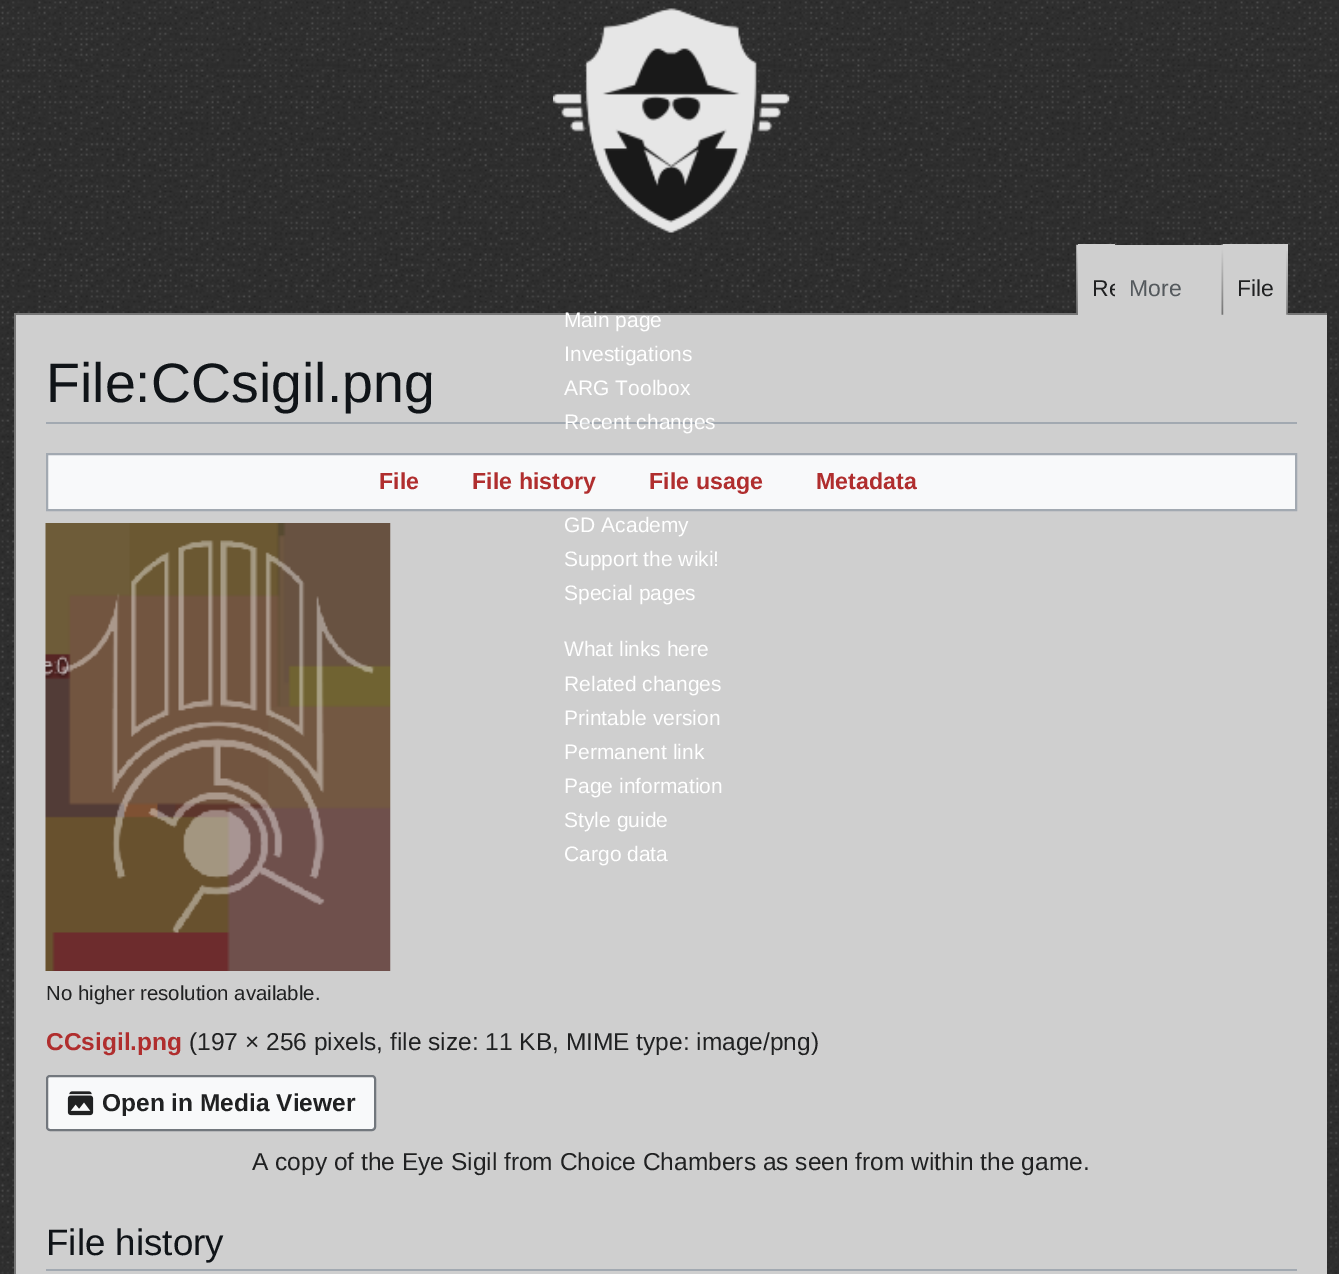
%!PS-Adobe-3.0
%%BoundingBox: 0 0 1339 1274
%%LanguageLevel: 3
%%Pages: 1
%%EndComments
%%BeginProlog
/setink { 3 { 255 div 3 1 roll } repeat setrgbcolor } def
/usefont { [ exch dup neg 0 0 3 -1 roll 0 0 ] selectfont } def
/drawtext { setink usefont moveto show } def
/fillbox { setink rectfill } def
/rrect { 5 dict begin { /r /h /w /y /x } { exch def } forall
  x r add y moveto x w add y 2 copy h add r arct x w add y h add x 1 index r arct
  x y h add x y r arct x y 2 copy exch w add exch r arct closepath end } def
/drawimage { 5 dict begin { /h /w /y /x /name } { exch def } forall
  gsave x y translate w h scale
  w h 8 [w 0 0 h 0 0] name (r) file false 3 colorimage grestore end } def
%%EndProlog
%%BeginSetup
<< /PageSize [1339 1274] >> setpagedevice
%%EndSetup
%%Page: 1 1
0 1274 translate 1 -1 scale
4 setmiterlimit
0 0 1339 1274 255 255 255 fillbox
(assets/img1.rgb) 0 68 1339 1206 drawimage
(assets/img2.rgb) 0 0 1339 68 drawimage
(assets/img3.rgb) 1076 244 2 69 drawimage
14 313 1313 2 118 118 118 fillbox
1078 244 37 71 207 207 207 fillbox
(Re) 1092 296 /LiberationSans-Regular 23 32 33 34 drawtext
1115 245 108 70 207 207 207 fillbox
(assets/img5.rgb) 1221 244 2 1 drawimage
1223 244 65 71 207 207 207 fillbox
(assets/img4.rgb) 1221 244 3 71 drawimage
(More) 1129 296 /LiberationSans-Regular 23 84 89 93 drawtext
(assets/img6.rgb) 1286 251 2 64 drawimage
(File) 1237 296 /LiberationSans-Regular 23 32 33 34 drawtext
(assets/img7.rgb) 553 8 237 225 drawimage
16 315 1311 959 207 207 207 fillbox
(Main page) 564 327 /LiberationSans-Regular 21 255 255 255 drawtext
(Investigations) 564 361 /LiberationSans-Regular 21 255 255 255 drawtext
(ARG Toolbox) 564 395 /LiberationSans-Regular 21 255 255 255 drawtext
46 422 1251 2 162 169 177 fillbox
(Recent changes) 564 429 /LiberationSans-Regular 21 255 255 255 drawtext
(GD Academy) 564 532 /LiberationSans-Regular 21 255 255 255 drawtext
(Support the wiki!) 564 566 /LiberationSans-Regular 21 255 255 255 drawtext
(Special pages) 564 600 /LiberationSans-Regular 21 255 255 255 drawtext
(What links here) 564 656 /LiberationSans-Regular 21 255 255 255 drawtext
(Related changes) 564 691 /LiberationSans-Regular 21 255 255 255 drawtext
(Printable version) 564 725 /LiberationSans-Regular 21 255 255 255 drawtext
(Permanent link) 564 759 /LiberationSans-Regular 21 255 255 255 drawtext
(Page information) 564 793 /LiberationSans-Regular 21 255 255 255 drawtext
(Style guide) 564 827 /LiberationSans-Regular 21 255 255 255 drawtext
(Cargo data) 564 861 /LiberationSans-Regular 21 255 255 255 drawtext
14 313 2 961 118 118 118 fillbox
(File:CCsigil.png) 46 402 /LiberationSans-Regular 55.5 16 20 24 drawtext
248 249 250 setink
47 454 moveto 1296 454 lineto 1296 510 lineto 47 510 lineto closepath gsave fill grestore
162 169 177 setink
2 setlinewidth
stroke
(File) 379 489 /LiberationSans-Bold 23.25 176 46 46 drawtext
(File history) 472 489 /LiberationSans-Bold 23.25 176 46 46 drawtext
(File usage) 649 489 /LiberationSans-Bold 23.25 176 46 46 drawtext
(Metadata) 816 489 /LiberationSans-Bold 23.25 176 46 46 drawtext
(assets/img8.rgb) 45 523 346 448 drawimage
(No higher resolution available.) 46 1000 /LiberationSans-Regular 20.4 32 33 34 drawtext
(CCsigil.png) 46 1050 /LiberationSans-Bold 24.5 176 46 46 drawtext
(\(197 × 256 pixels, file size: 11 KB, MIME type: image/png\)) 189 1050 /LiberationSans-Regular 24.5 32 33 34 drawtext
248 249 250 setink
47 1076 328 54 3 rrect gsave fill grestore
114 119 125 setink
stroke
(assets/img9.rgb) 67 1091 27 25 drawimage
(Open in Media Viewer) 102 1111 /LiberationSans-Bold 24.5 32 33 34 drawtext
(A copy of the Eye Sigil from Choice Chambers as seen from within the game.) 252 1170 /LiberationSans-Regular 24.5 32 33 34 drawtext
46 1269 1251 2 162 169 177 fillbox
(File history) 46 1255 /LiberationSans-Regular 36.75 16 20 24 drawtext
showpage
%%EOF
